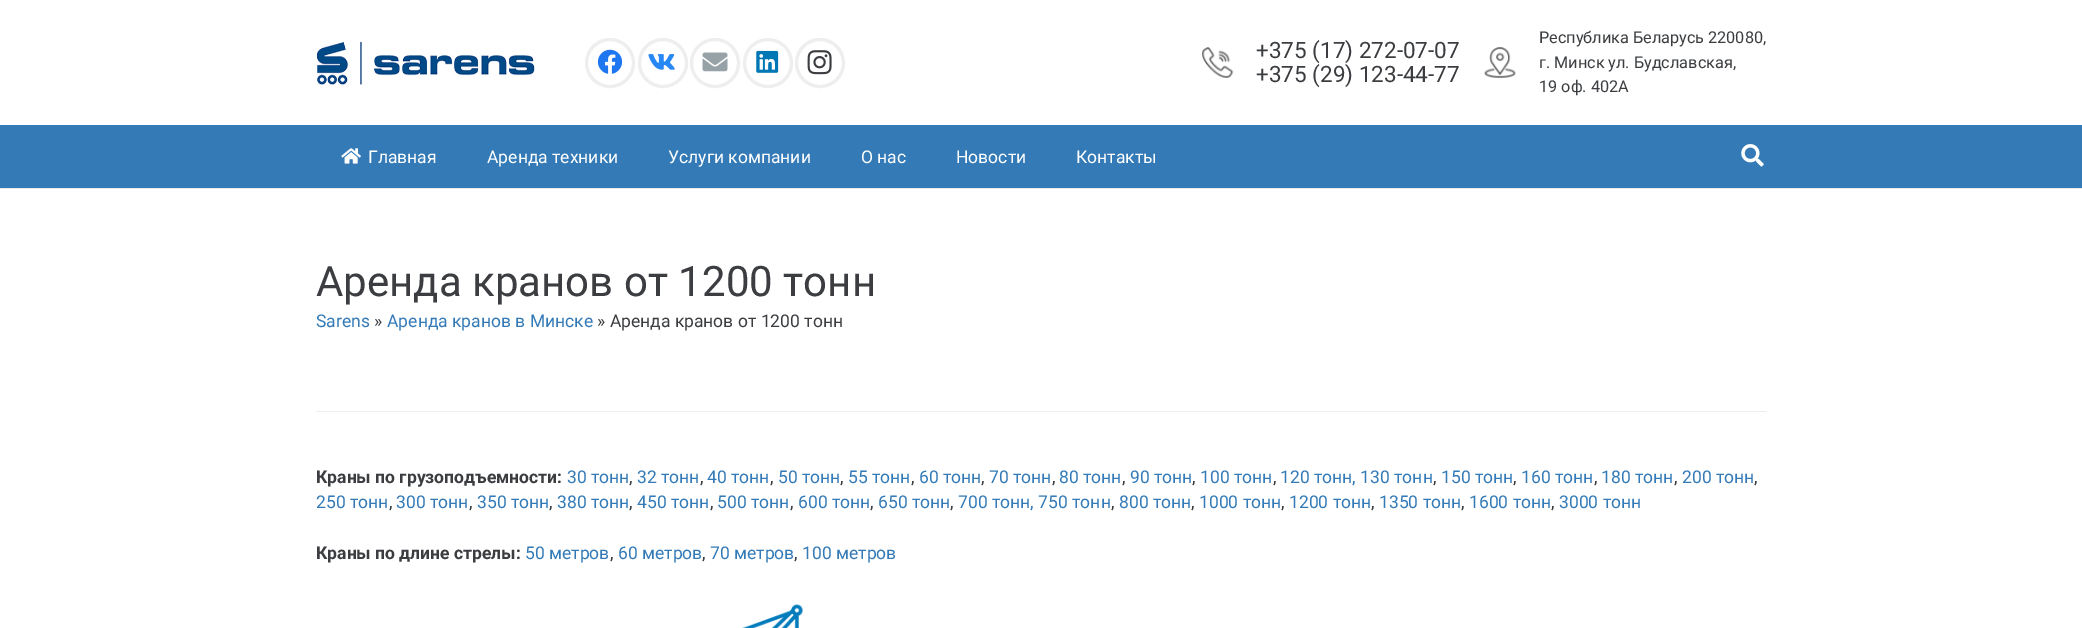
%!PS-Adobe-3.0
%%BoundingBox: 0 0 2082 628
%%LanguageLevel: 3
%%Pages: 1
%%EndComments
%%BeginProlog
/setink { 3 { 255 div 3 1 roll } repeat setrgbcolor } def
/usefont { [ exch dup neg 0 0 3 -1 roll 0 0 ] selectfont } def
/drawtext { setink usefont moveto show } def
/fillbox { setink rectfill } def
/disc { newpath 0 360 arc closepath } def
/drawimage { 5 dict begin { /h /w /y /x /name } { exch def } forall
  gsave x y translate w h scale
  w h 8 [w 0 0 h 0 0] name (r) file false 3 colorimage grestore end } def
%%EndProlog
%%BeginSetup
<< /PageSize [2082 628] >> setpagedevice
%%EndSetup
%%Page: 1 1
0 628 translate 1 -1 scale
4 setmiterlimit
0 0 2082 628 255 255 255 fillbox
(assets/img1.rgb) 316 41 219 44 drawimage
238 238 238 setink
3 setlinewidth
610 63 23.5 disc stroke
(assets/img2.rgb) 597 49 26 25 drawimage
663 63 23.5 disc stroke
(assets/img3.rgb) 648 54 27 16 drawimage
715 63 23.5 disc stroke
(assets/img4.rgb) 702 52 26 20 drawimage
768 63 23.5 disc stroke
(assets/img5.rgb) 756 50 23 23 drawimage
820 63 23.5 disc stroke
(assets/img6.rgb) 807 50 25 25 drawimage
(assets/img7.rgb) 1202 47 32 31 drawimage
(+375 \(17\) 272-07-07) 1256 58 /Roboto-Regular 22.5 59 61 64 drawtext
(+375 \(29\) 123-44-77) 1256 82 /Roboto-Regular 22.5 59 61 64 drawtext
(assets/img8.rgb) 1484 47 32 31 drawimage
(Республика Беларусь 220080,) 1539 43 /Roboto-Regular 16.25 59 61 64 drawtext
(г. Минск ул. Будславская,) 1539 68 /Roboto-Regular 16.25 59 61 64 drawtext
(19 оф. 402А) 1539 92 /Roboto-Regular 16.25 59 61 64 drawtext
235 235 235 setink
0 188 moveto 0 189 lineto 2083 189 lineto 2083 126 lineto 2082 126 lineto 2082 188 lineto closepath fill
0 125 2082 63 51 122 183 fillbox
(assets/img9.rgb) 341 148 20 16 drawimage
(Главная) 368 163 /Roboto-Regular 17.5 255 255 255 drawtext
(Аренда техники) 487 163 /Roboto-Regular 17.5 255 255 255 drawtext
(Услуги компании) 668 163 /Roboto-Regular 17.5 255 255 255 drawtext
(О нас) 861 163 /Roboto-Regular 17.5 255 255 255 drawtext
(Новости) 956 163 /Roboto-Regular 17.5 255 255 255 drawtext
(Контакты) 1076 163 /Roboto-Regular 17.5 255 255 255 drawtext
(assets/img10.rgb) 1741 144 23 23 drawimage
(Аренда кранов от 1200 тонн) 316 296 /Roboto-Regular 42 59 61 64 drawtext
(Sarens) 316 327 /Roboto-Regular 17.5 51 122 183 drawtext
(») 374 327 /Roboto-Regular 17.5 59 61 64 drawtext
(Аренда кранов в Минске) 387 327 /Roboto-Regular 17.5 51 122 183 drawtext
(» Аренда кранов от 1200 тонн) 597 327 /Roboto-Regular 17.5 59 61 64 drawtext
316 411 1450 1 238 238 238 fillbox
(Краны по грузоподъемности:) 316 483 /Roboto-Bold 17.5 59 61 64 drawtext
(30 тонн) 567 483 /Roboto-Regular 17.5 51 122 183 drawtext
(,) 629 483 /Roboto-Regular 17.5 59 61 64 drawtext
(32 тонн) 637 483 /Roboto-Regular 17.5 51 122 183 drawtext
(,) 700 483 /Roboto-Regular 17.5 59 61 64 drawtext
(40 тонн) 707 483 /Roboto-Regular 17.5 51 122 183 drawtext
(,) 770 483 /Roboto-Regular 17.5 59 61 64 drawtext
(50 тонн) 778 483 /Roboto-Regular 17.5 51 122 183 drawtext
(,) 840 483 /Roboto-Regular 17.5 59 61 64 drawtext
(55 тонн) 848 483 /Roboto-Regular 17.5 51 122 183 drawtext
(,) 911 483 /Roboto-Regular 17.5 59 61 64 drawtext
(60 тонн) 919 483 /Roboto-Regular 17.5 51 122 183 drawtext
(,) 981 483 /Roboto-Regular 17.5 59 61 64 drawtext
(70 тонн) 989 483 /Roboto-Regular 17.5 51 122 183 drawtext
(,) 1052 483 /Roboto-Regular 17.5 59 61 64 drawtext
(80 тонн) 1059 483 /Roboto-Regular 17.5 51 122 183 drawtext
(,) 1122 483 /Roboto-Regular 17.5 59 61 64 drawtext
(90 тонн) 1130 483 /Roboto-Regular 17.5 51 122 183 drawtext
(,) 1192 483 /Roboto-Regular 17.5 59 61 64 drawtext
(100 тонн) 1200 483 /Roboto-Regular 17.5 51 122 183 drawtext
(,) 1273 483 /Roboto-Regular 17.5 59 61 64 drawtext
(120 тонн, 130 тонн) 1280 483 /Roboto-Regular 17.5 51 122 183 drawtext
(,) 1433 483 /Roboto-Regular 17.5 59 61 64 drawtext
(150 тонн) 1441 483 /Roboto-Regular 17.5 51 122 183 drawtext
(,) 1513 483 /Roboto-Regular 17.5 59 61 64 drawtext
(160 тонн) 1521 483 /Roboto-Regular 17.5 51 122 183 drawtext
(,) 1594 483 /Roboto-Regular 17.5 59 61 64 drawtext
(180 тонн) 1601 483 /Roboto-Regular 17.5 51 122 183 drawtext
(,) 1674 483 /Roboto-Regular 17.5 59 61 64 drawtext
(200 тонн) 1682 483 /Roboto-Regular 17.5 51 122 183 drawtext
(,) 1754 483 /Roboto-Regular 17.5 59 61 64 drawtext
(250 тонн) 316 508 /Roboto-Regular 17.5 51 122 183 drawtext
(,) 389 508 /Roboto-Regular 17.5 59 61 64 drawtext
(300 тонн) 396 508 /Roboto-Regular 17.5 51 122 183 drawtext
(,) 469 508 /Roboto-Regular 17.5 59 61 64 drawtext
(350 тонн) 477 508 /Roboto-Regular 17.5 51 122 183 drawtext
(,) 549 508 /Roboto-Regular 17.5 59 61 64 drawtext
(380 тонн) 557 508 /Roboto-Regular 17.5 51 122 183 drawtext
(,) 629 508 /Roboto-Regular 17.5 59 61 64 drawtext
(450 тонн) 637 508 /Roboto-Regular 17.5 51 122 183 drawtext
(,) 710 508 /Roboto-Regular 17.5 59 61 64 drawtext
(500 тонн) 717 508 /Roboto-Regular 17.5 51 122 183 drawtext
(,) 790 508 /Roboto-Regular 17.5 59 61 64 drawtext
(600 тонн) 798 508 /Roboto-Regular 17.5 51 122 183 drawtext
(,) 870 508 /Roboto-Regular 17.5 59 61 64 drawtext
(650 тонн) 878 508 /Roboto-Regular 17.5 51 122 183 drawtext
(,) 950 508 /Roboto-Regular 17.5 59 61 64 drawtext
(700 тонн, 750 тонн) 958 508 /Roboto-Regular 17.5 51 122 183 drawtext
(,) 1111 508 /Roboto-Regular 17.5 59 61 64 drawtext
(800 тонн) 1119 508 /Roboto-Regular 17.5 51 122 183 drawtext
(,) 1191 508 /Roboto-Regular 17.5 59 61 64 drawtext
(1000 тонн) 1199 508 /Roboto-Regular 17.5 51 122 183 drawtext
(,) 1281 508 /Roboto-Regular 17.5 59 61 64 drawtext
(1200 тонн) 1289 508 /Roboto-Regular 17.5 51 122 183 drawtext
(,) 1371 508 /Roboto-Regular 17.5 59 61 64 drawtext
(1350 тонн) 1379 508 /Roboto-Regular 17.5 51 122 183 drawtext
(,) 1461 508 /Roboto-Regular 17.5 59 61 64 drawtext
(1600 тонн) 1469 508 /Roboto-Regular 17.5 51 122 183 drawtext
(,) 1551 508 /Roboto-Regular 17.5 59 61 64 drawtext
(3000 тонн) 1559 508 /Roboto-Regular 17.5 51 122 183 drawtext
(Краны по длине стрелы:) 316 559 /Roboto-Bold 17.5 59 61 64 drawtext
(50 метров) 525 559 /Roboto-Regular 17.5 51 122 183 drawtext
(,) 610 559 /Roboto-Regular 17.5 59 61 64 drawtext
(60 метров) 618 559 /Roboto-Regular 17.5 51 122 183 drawtext
(,) 702 559 /Roboto-Regular 17.5 59 61 64 drawtext
(70 метров) 710 559 /Roboto-Regular 17.5 51 122 183 drawtext
(,) 794 559 /Roboto-Regular 17.5 59 61 64 drawtext
(100 метров) 802 559 /Roboto-Regular 17.5 51 122 183 drawtext
(assets/img11.rgb) 741 604 62 24 drawimage
showpage
%%EOF
